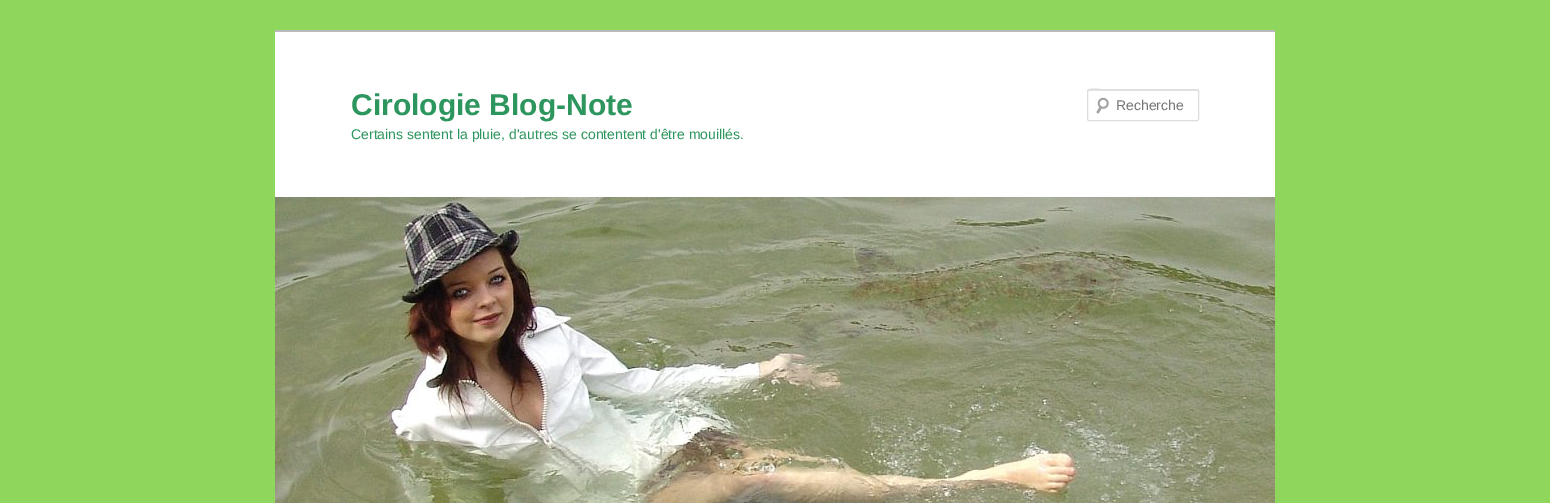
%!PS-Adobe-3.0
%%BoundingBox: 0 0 1550 503
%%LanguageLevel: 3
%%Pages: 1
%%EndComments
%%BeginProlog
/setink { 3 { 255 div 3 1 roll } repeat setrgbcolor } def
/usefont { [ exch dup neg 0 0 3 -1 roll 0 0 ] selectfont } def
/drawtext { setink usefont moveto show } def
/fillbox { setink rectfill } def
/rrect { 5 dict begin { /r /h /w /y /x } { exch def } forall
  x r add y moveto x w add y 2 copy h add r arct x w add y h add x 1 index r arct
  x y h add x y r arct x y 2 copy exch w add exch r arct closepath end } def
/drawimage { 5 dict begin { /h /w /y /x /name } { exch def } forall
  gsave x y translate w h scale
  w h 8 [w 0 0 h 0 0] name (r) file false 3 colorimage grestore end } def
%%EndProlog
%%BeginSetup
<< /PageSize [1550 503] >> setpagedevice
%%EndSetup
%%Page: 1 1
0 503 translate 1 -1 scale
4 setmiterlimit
0 0 1550 503 142 214 92 fillbox
275 32 1000 165 255 255 255 fillbox
275 30 1000 2 187 187 187 fillbox
(Cirologie Blog-Note) 351 115 /LiberationSans-Bold 30 45 150 94 drawtext
(Certains sentent la pluie, d'autres se contentent d'être mouillés.) 351 139 /LiberationSans-Regular 14 45 150 94 drawtext
(assets/img1.rgb) 1096 97 13 17 drawimage
230 230 230 setink
1089 91 moveto 1198 91 lineto 1198 92 lineto 1197 90 lineto 1107 90 lineto 1103 90 1088 85 1088 92 curveto 1088 91 1088 91 1089 91 curveto closepath fill
221 221 221 setink
1087.5 89.5 111 31 1.5 rrect stroke
(Recherche) 1116 110 /LiberationSans-Regular 14 117 117 117 drawtext
(assets/img2.rgb) 275 197 1000 306 drawimage
showpage
%%EOF
